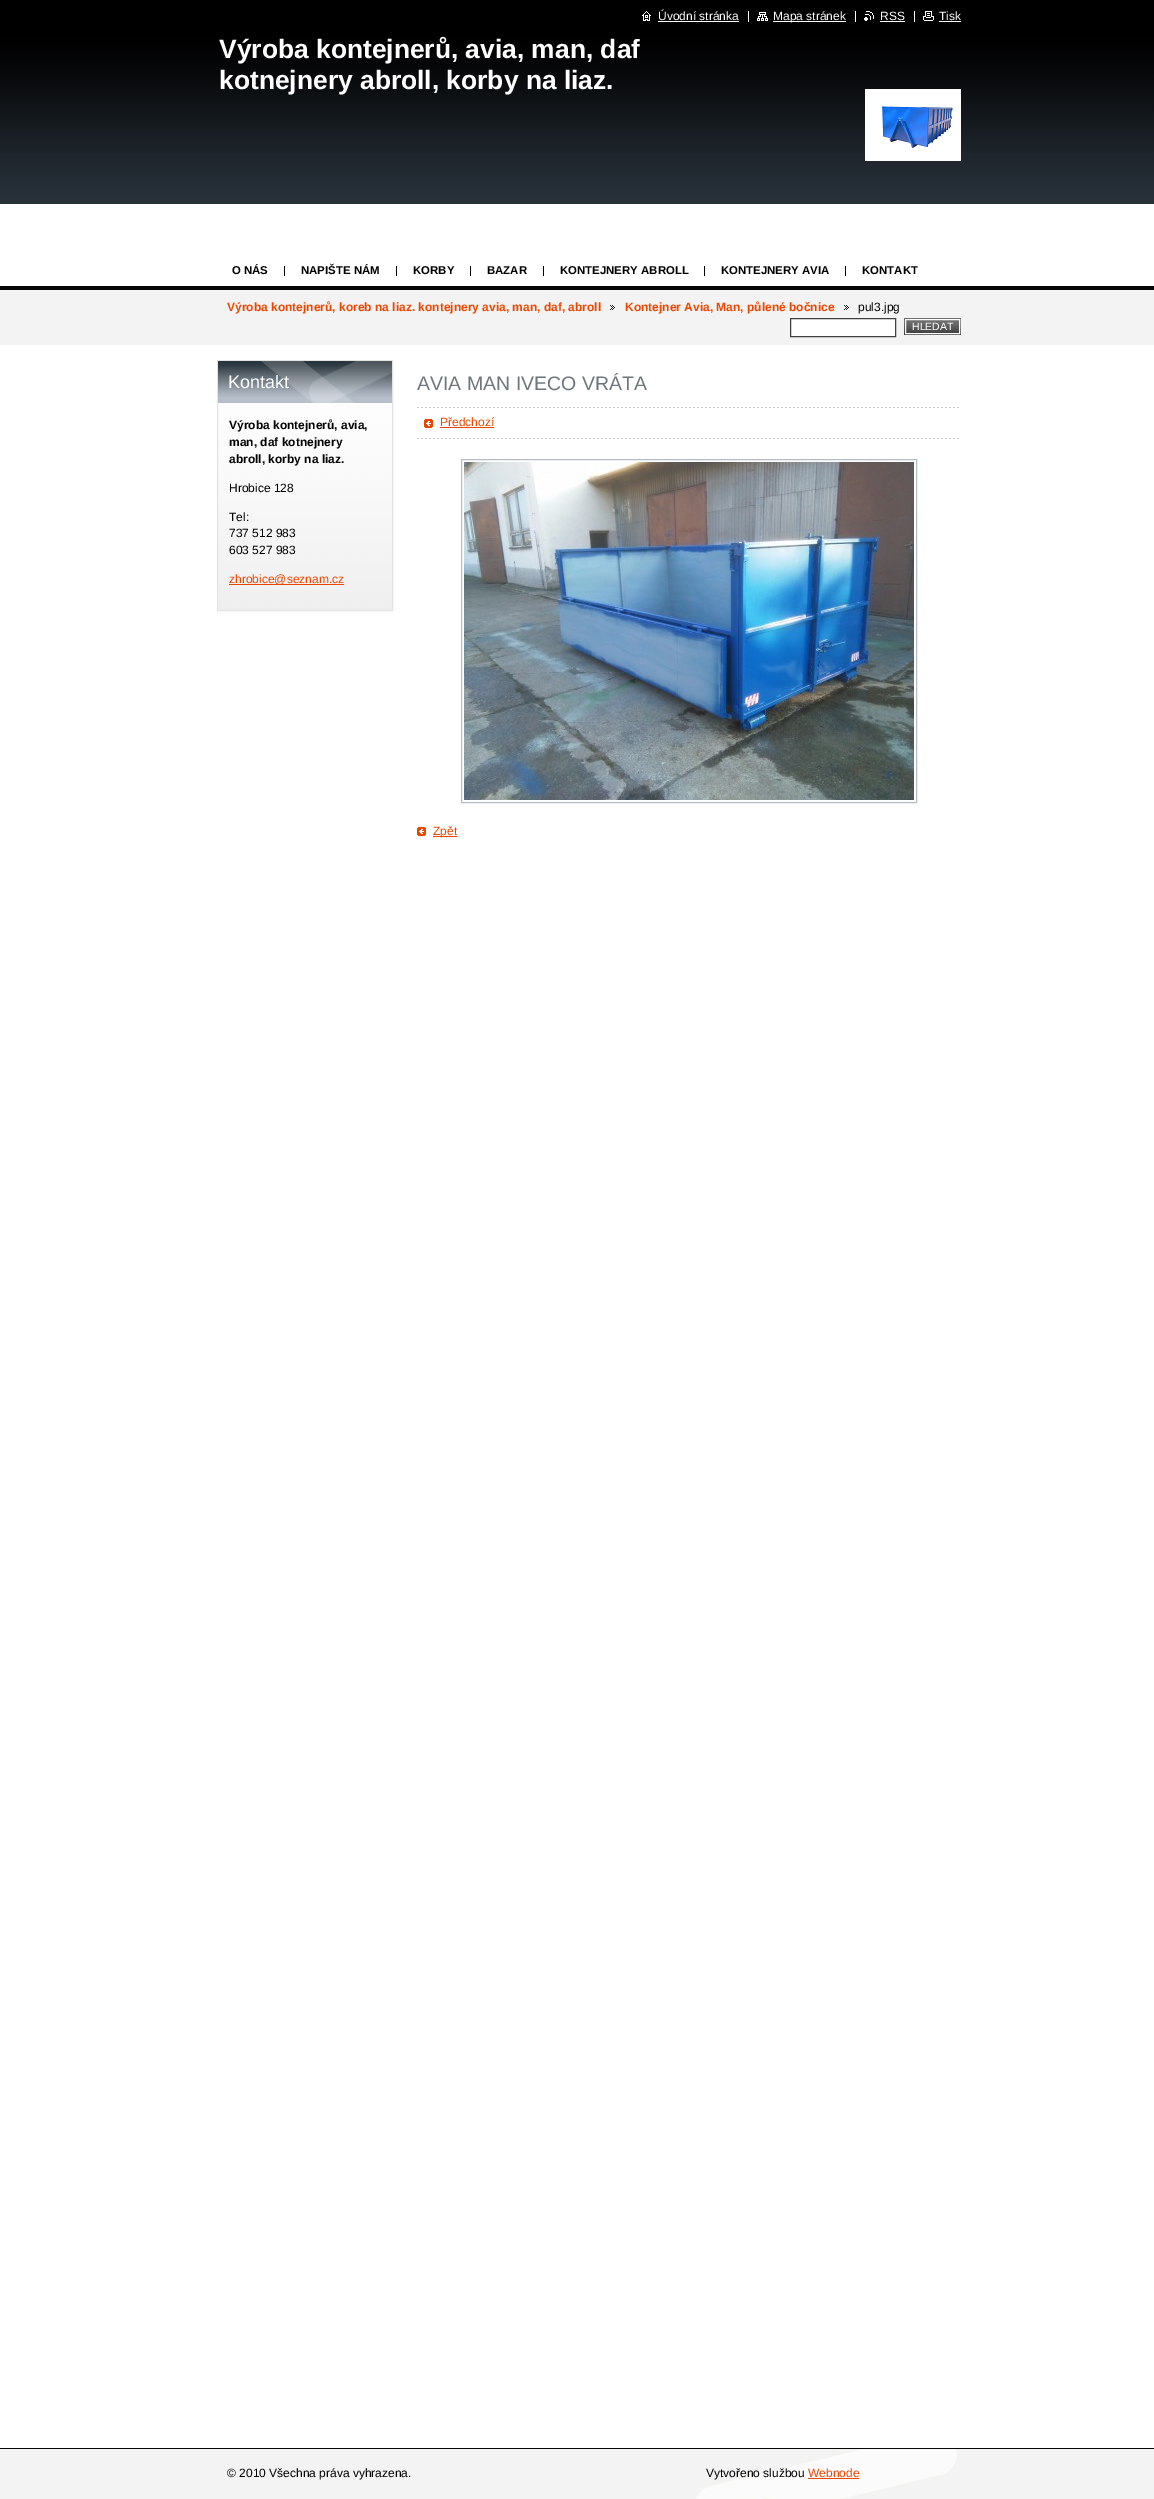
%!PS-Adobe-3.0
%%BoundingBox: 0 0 1154 2499
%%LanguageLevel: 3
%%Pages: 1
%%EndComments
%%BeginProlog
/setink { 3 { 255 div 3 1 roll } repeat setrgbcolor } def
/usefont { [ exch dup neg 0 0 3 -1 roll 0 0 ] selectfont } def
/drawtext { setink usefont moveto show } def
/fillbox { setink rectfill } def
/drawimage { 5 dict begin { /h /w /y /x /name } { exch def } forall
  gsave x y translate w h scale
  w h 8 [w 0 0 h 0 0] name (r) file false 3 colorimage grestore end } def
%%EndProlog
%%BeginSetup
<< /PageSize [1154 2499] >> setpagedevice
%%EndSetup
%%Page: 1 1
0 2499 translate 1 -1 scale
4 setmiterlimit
0 0 1154 2499 255 255 255 fillbox
0 0 1154 34 0 0 0 fillbox
(assets/img1.rgb) 642 11 9 10 drawimage
(Úvodní stránka) 658 20 /LiberationSans-Regular 12 255 255 255 drawtext
658 21 81 1 255 255 255 fillbox
(assets/img2.rgb) 757 11 11 10 drawimage
773 21 73 1 255 255 255 fillbox
(Mapa stránek) 773 20 /LiberationSans-Regular 12 255 255 255 drawtext
748 11 1 11 255 255 255 fillbox
(assets/img3.rgb) 864 11 11 10 drawimage
(RSS) 880 20 /LiberationSans-Regular 12 255 255 255 drawtext
855 11 1 11 255 255 255 fillbox
880 21 25 1 255 255 255 fillbox
(assets/img4.rgb) 923 11 11 10 drawimage
(Tisk) 939 20 /LiberationSans-Regular 12 255 255 255 drawtext
914 11 1 11 255 255 255 fillbox
939 21 22 1 255 255 255 fillbox
(assets/img5.rgb) 0 34 1154 170 drawimage
(Výroba kontejnerů, avia, man, daf) 219 58 /LiberationSans-Bold 26.4 255 255 255 drawtext
(kotnejnery abroll, korby na liaz.) 219 89 /LiberationSans-Bold 26.4 255 255 255 drawtext
(assets/img6.rgb) 865 89 96 72 drawimage
(O NÁS) 232 274 /LiberationSans-Bold 11.4 0 0 0 drawtext
284 266 1 10 0 0 0 fillbox
(NAPIŠTE NÁM) 301 274 /LiberationSans-Bold 11.4 0 0 0 drawtext
396 266 1 10 0 0 0 fillbox
(KORBY) 413 274 /LiberationSans-Bold 11.4 0 0 0 drawtext
470 266 1 10 0 0 0 fillbox
(BAZAR) 487 274 /LiberationSans-Bold 11.4 0 0 0 drawtext
543 266 1 10 0 0 0 fillbox
(KONTEJNERY ABROLL) 560 274 /LiberationSans-Bold 11.4 0 0 0 drawtext
704 266 1 10 0 0 0 fillbox
(KONTEJNERY AVIA) 721 274 /LiberationSans-Bold 11.4 0 0 0 drawtext
845 266 1 10 0 0 0 fillbox
(KONTAKT) 862 274 /LiberationSans-Bold 11.4 0 0 0 drawtext
0 290 1154 55 243 243 243 fillbox
0 286 1154 4 5 5 5 fillbox
(Výroba kontejnerů, koreb na liaz. kontejnery avia, man, daf, abroll) 227 311 /LiberationSans-Bold 12 236 71 0 drawtext
(assets/img7.rgb) 610 305 5 5 drawimage
(Kontejner Avia, Man, půlené bočnice) 625 311 /LiberationSans-Bold 12 236 71 0 drawtext
(assets/img7.rgb) 844 305 5 5 drawimage
(pul3.jpg) 858 311 /LiberationSans-Regular 12 0 0 0 drawtext
255 255 255 setink
790.5 318.5 moveto 895.5 318.5 lineto 895.5 336.5 lineto 790.5 336.5 lineto closepath gsave fill grestore
64 64 64 setink
stroke
904 333 57 2 64 64 64 fillbox
(assets/img8.rgb) 904 318 57 15 drawimage
(assets/img9.rgb) 906 320 53 13 drawimage
255 255 255 setink
905.5 319.5 54 14 rectstroke
(HLEDAT) 912 330 /LiberationSans-Regular 10.5 255 255 255 drawtext
(assets/img10.rgb) 218 403 174 207 drawimage
227 227 227 setink
217.5 360.5 175 250 rectstroke
(assets/img11.rgb) 218 361 174 42 drawimage
(Kontakt) 228 388 /LiberationSans-Regular 18 255 255 255 drawtext
(Výroba kontejnerů, avia,) 229 429 /LiberationSans-Bold 12 0 0 0 drawtext
(man, daf kotnejnery) 229 446 /LiberationSans-Bold 12 0 0 0 drawtext
(abroll, korby na liaz.) 229 463 /LiberationSans-Bold 12 0 0 0 drawtext
(Hrobice 128) 229 492 /LiberationSans-Regular 12 0 0 0 drawtext
(Tel:) 229 521 /LiberationSans-Regular 12 0 0 0 drawtext
(737 512 983) 229 537 /LiberationSans-Regular 12 0 0 0 drawtext
(603 527 983) 229 554 /LiberationSans-Regular 12 0 0 0 drawtext
229 584 115 1 236 71 0 fillbox
(zhrobice@seznam.cz) 229 583 /LiberationSans-Regular 12 236 71 0 drawtext
(AVIA MAN IVECO VRÁTA) 417 390 /LiberationSans-Regular 19.5 110 120 124 drawtext
(assets/img12.rgb) 417 407 542 1 drawimage
(assets/img12.rgb) 417 438 542 1 drawimage
(assets/img13.rgb) 424 419 9 9 drawimage
(Předchozí) 440 426 /LiberationSans-Regular 12 236 71 0 drawtext
440 427 54 1 236 71 0 fillbox
180 188 199 setink
461.5 459.5 455 343 rectstroke
(assets/img14.rgb) 464 462 450 338 drawimage
(assets/img13.rgb) 417 827 9 9 drawimage
433 836 24 1 236 71 0 fillbox
(Zpět) 433 835 /LiberationSans-Regular 12 236 71 0 drawtext
0 2449 1154 50 243 243 243 fillbox
0 2448 1154 1 5 5 5 fillbox
(assets/img15.rgb) 695 2449 262 50 drawimage
(© 2010 Všechna práva vyhrazena.) 227 2477 /LiberationSans-Regular 12 0 0 0 drawtext
(Vytvořeno službou) 706 2477 /LiberationSans-Regular 12 0 0 0 drawtext
(Webnode) 808 2477 /LiberationSans-Regular 12 236 71 0 drawtext
808 2478 51 1 236 71 0 fillbox
showpage
%%EOF
